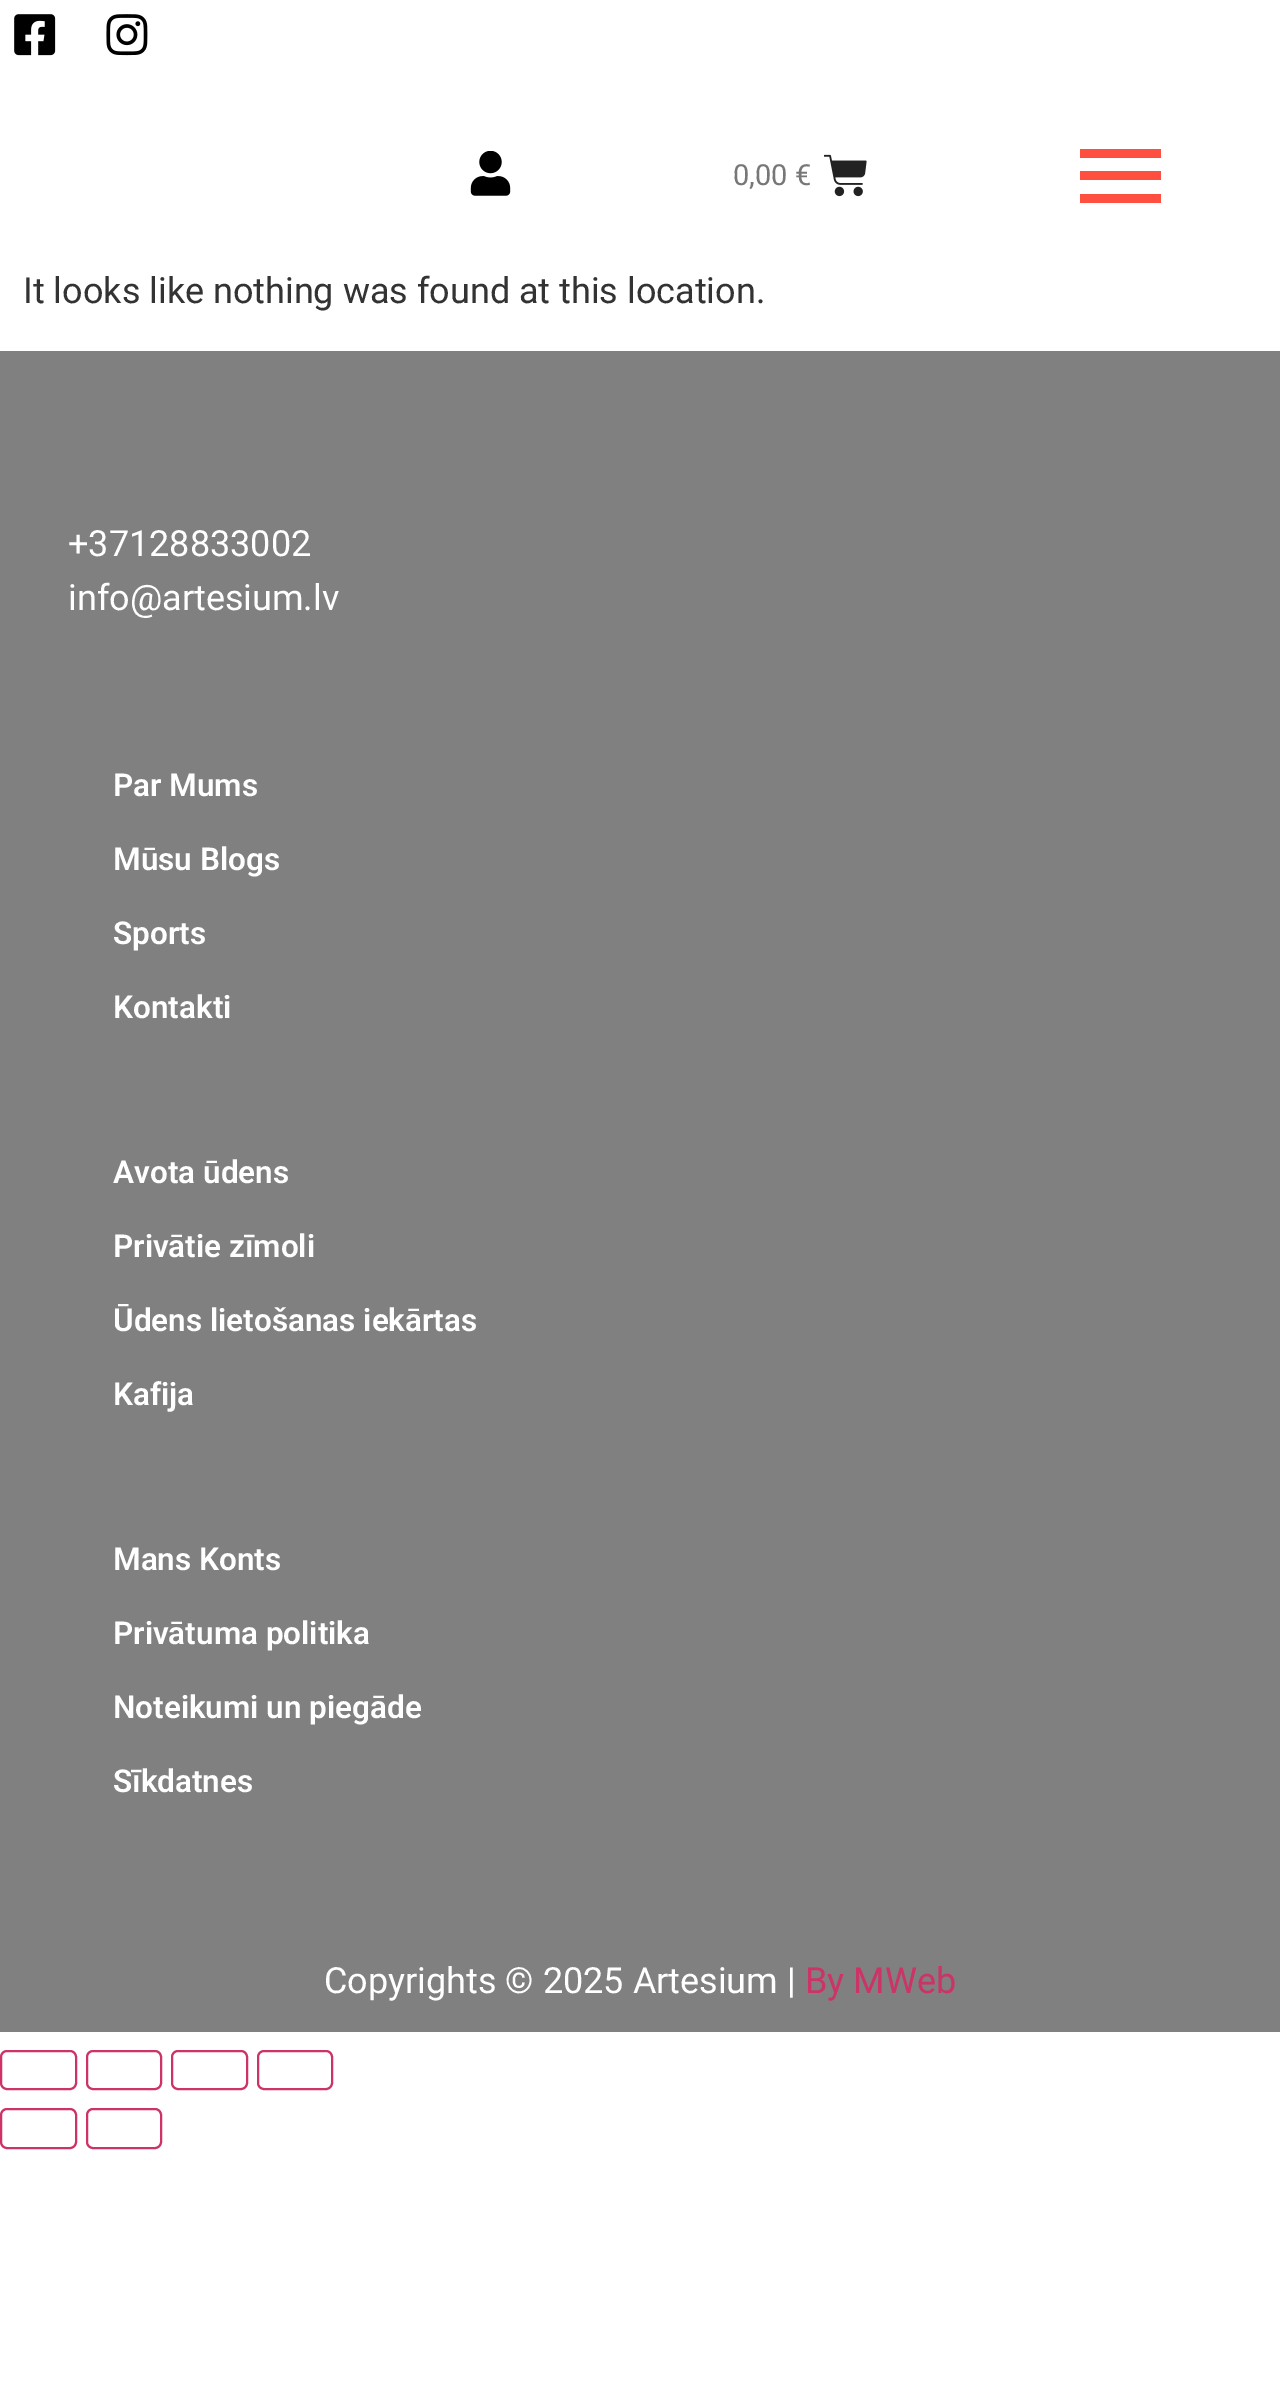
%!PS-Adobe-3.0
%%BoundingBox: 0 0 1280 2381
%%LanguageLevel: 3
%%Pages: 1
%%EndComments
%%BeginProlog
/setink { 3 { 255 div 3 1 roll } repeat setrgbcolor } def
/usefont { [ exch dup neg 0 0 3 -1 roll 0 0 ] selectfont } def
/drawtext { setink usefont moveto show } def
/fillbox { setink rectfill } def
/rrect { 5 dict begin { /r /h /w /y /x } { exch def } forall
  x r add y moveto x w add y 2 copy h add r arct x w add y h add x 1 index r arct
  x y h add x y r arct x y 2 copy exch w add exch r arct closepath end } def
/drawimage { 5 dict begin { /h /w /y /x /name } { exch def } forall
  gsave x y translate w h scale
  w h 8 [w 0 0 h 0 0] name (r) file false 3 colorimage grestore end } def
%%EndProlog
%%BeginSetup
<< /PageSize [1280 2381] >> setpagedevice
%%EndSetup
%%Page: 1 1
0 2381 translate 1 -1 scale
4 setmiterlimit
0 0 1280 2381 255 255 255 fillbox
(assets/img1.rgb) 14 14 42 42 drawimage
(assets/img2.rgb) 106 14 42 42 drawimage
(assets/img3.rgb) 470 151 41 45 drawimage
(0,00 €) 733 185 /Roboto-Regular 29 119 119 119 drawtext
(assets/img4.rgb) 824 154 43 43 drawimage
1080 149 81 9 255 79 64 fillbox
1080 171 81 9 255 79 64 fillbox
1080 194 81 9 255 79 64 fillbox
(It looks like nothing was found at this location.) 23 303 /Roboto-Regular 36 51 51 51 drawtext
0 351 1280 1681 128 128 128 fillbox
(+37128833002) 68 556 /Roboto-Regular 36 255 255 255 drawtext
(info@artesium.lv) 68 610 /Roboto-Regular 36 255 255 255 drawtext
(Par Mums) 113 796 /Roboto-SemiBold 31.5 255 255 255 drawtext
(Mūsu Blogs) 113 870 /Roboto-SemiBold 31.5 255 255 255 drawtext
(Sports) 113 944 /Roboto-SemiBold 31.5 255 255 255 drawtext
(Kontakti) 113 1018 /Roboto-SemiBold 31.5 255 255 255 drawtext
(Avota ūdens) 113 1183 /Roboto-SemiBold 31.5 255 255 255 drawtext
(Privātie zīmoli) 113 1257 /Roboto-SemiBold 31.5 255 255 255 drawtext
(Ūdens lietošanas iekārtas) 113 1331 /Roboto-SemiBold 31.5 255 255 255 drawtext
(Kafija) 113 1405 /Roboto-SemiBold 31.5 255 255 255 drawtext
(Mans Konts) 113 1570 /Roboto-SemiBold 31.5 255 255 255 drawtext
(Privātuma politika) 113 1644 /Roboto-SemiBold 31.5 255 255 255 drawtext
(Noteikumi un piegāde) 113 1718 /Roboto-SemiBold 31.5 255 255 255 drawtext
(Sīkdatnes) 113 1792 /Roboto-SemiBold 31.5 255 255 255 drawtext
(Copyrights © 2025 Artesium |) 324 1993 /Roboto-Regular 36 255 255 255 drawtext
(By MWeb) 805 1993 /Roboto-Regular 36 204 51 102 drawtext
2 setlinewidth
1 2051 75 38 6 rrect stroke
87 2051 74 38 6 rrect stroke
172 2051 75 38 6 rrect stroke
258 2051 74 38 6 rrect stroke
1 2109 75 39 6 rrect stroke
87 2109 74 39 6 rrect stroke
showpage
%%EOF
